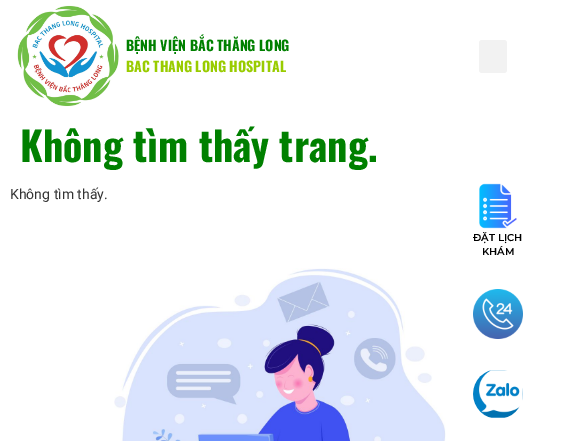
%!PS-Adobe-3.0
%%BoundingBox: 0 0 563 441
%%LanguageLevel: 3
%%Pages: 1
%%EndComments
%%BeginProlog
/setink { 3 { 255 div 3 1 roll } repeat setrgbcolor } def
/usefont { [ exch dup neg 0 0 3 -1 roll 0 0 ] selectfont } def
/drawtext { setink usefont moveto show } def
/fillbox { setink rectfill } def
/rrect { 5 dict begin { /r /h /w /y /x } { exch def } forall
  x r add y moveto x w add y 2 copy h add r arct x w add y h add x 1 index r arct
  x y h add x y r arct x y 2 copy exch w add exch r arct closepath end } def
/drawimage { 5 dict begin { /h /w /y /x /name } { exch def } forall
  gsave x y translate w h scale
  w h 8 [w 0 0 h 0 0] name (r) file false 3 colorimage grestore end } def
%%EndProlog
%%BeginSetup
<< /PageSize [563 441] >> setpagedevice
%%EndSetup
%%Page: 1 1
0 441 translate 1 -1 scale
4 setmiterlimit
0 0 563 441 255 255 255 fillbox
(assets/img1.rgb) 17 5 102 102 drawimage
(BỆNH VIỆN BẮC THĂNG LONG) 126 51 /Oswald-Bold 14 0 128 0 drawtext
(BAC THANG LONG HOSPITAL) 126 72 /Oswald-Bold 14 153 204 0 drawtext
242 242 242 setink
479 40 28 33 3 rrect fill
(Không tìm thấy trang.) 20 162 /Oswald-Bold 40 0 128 0 drawtext
(Không tìm thấy.) 10 199 /Roboto-Regular 14 51 51 51 drawtext
(assets/img2.rgb) 479 183 38 46 drawimage
(ĐẶT LỊCH) 473 241 /Montserrat-SemiBold 10 0 0 0 drawtext
(KHÁM) 482 255 /Montserrat-SemiBold 10 0 0 0 drawtext
(assets/img3.rgb) 473 289 50 50 drawimage
(assets/img4.rgb) 473 370 50 48 drawimage
(assets/img5.rgb) 114 268 332 173 drawimage
showpage
%%EOF
